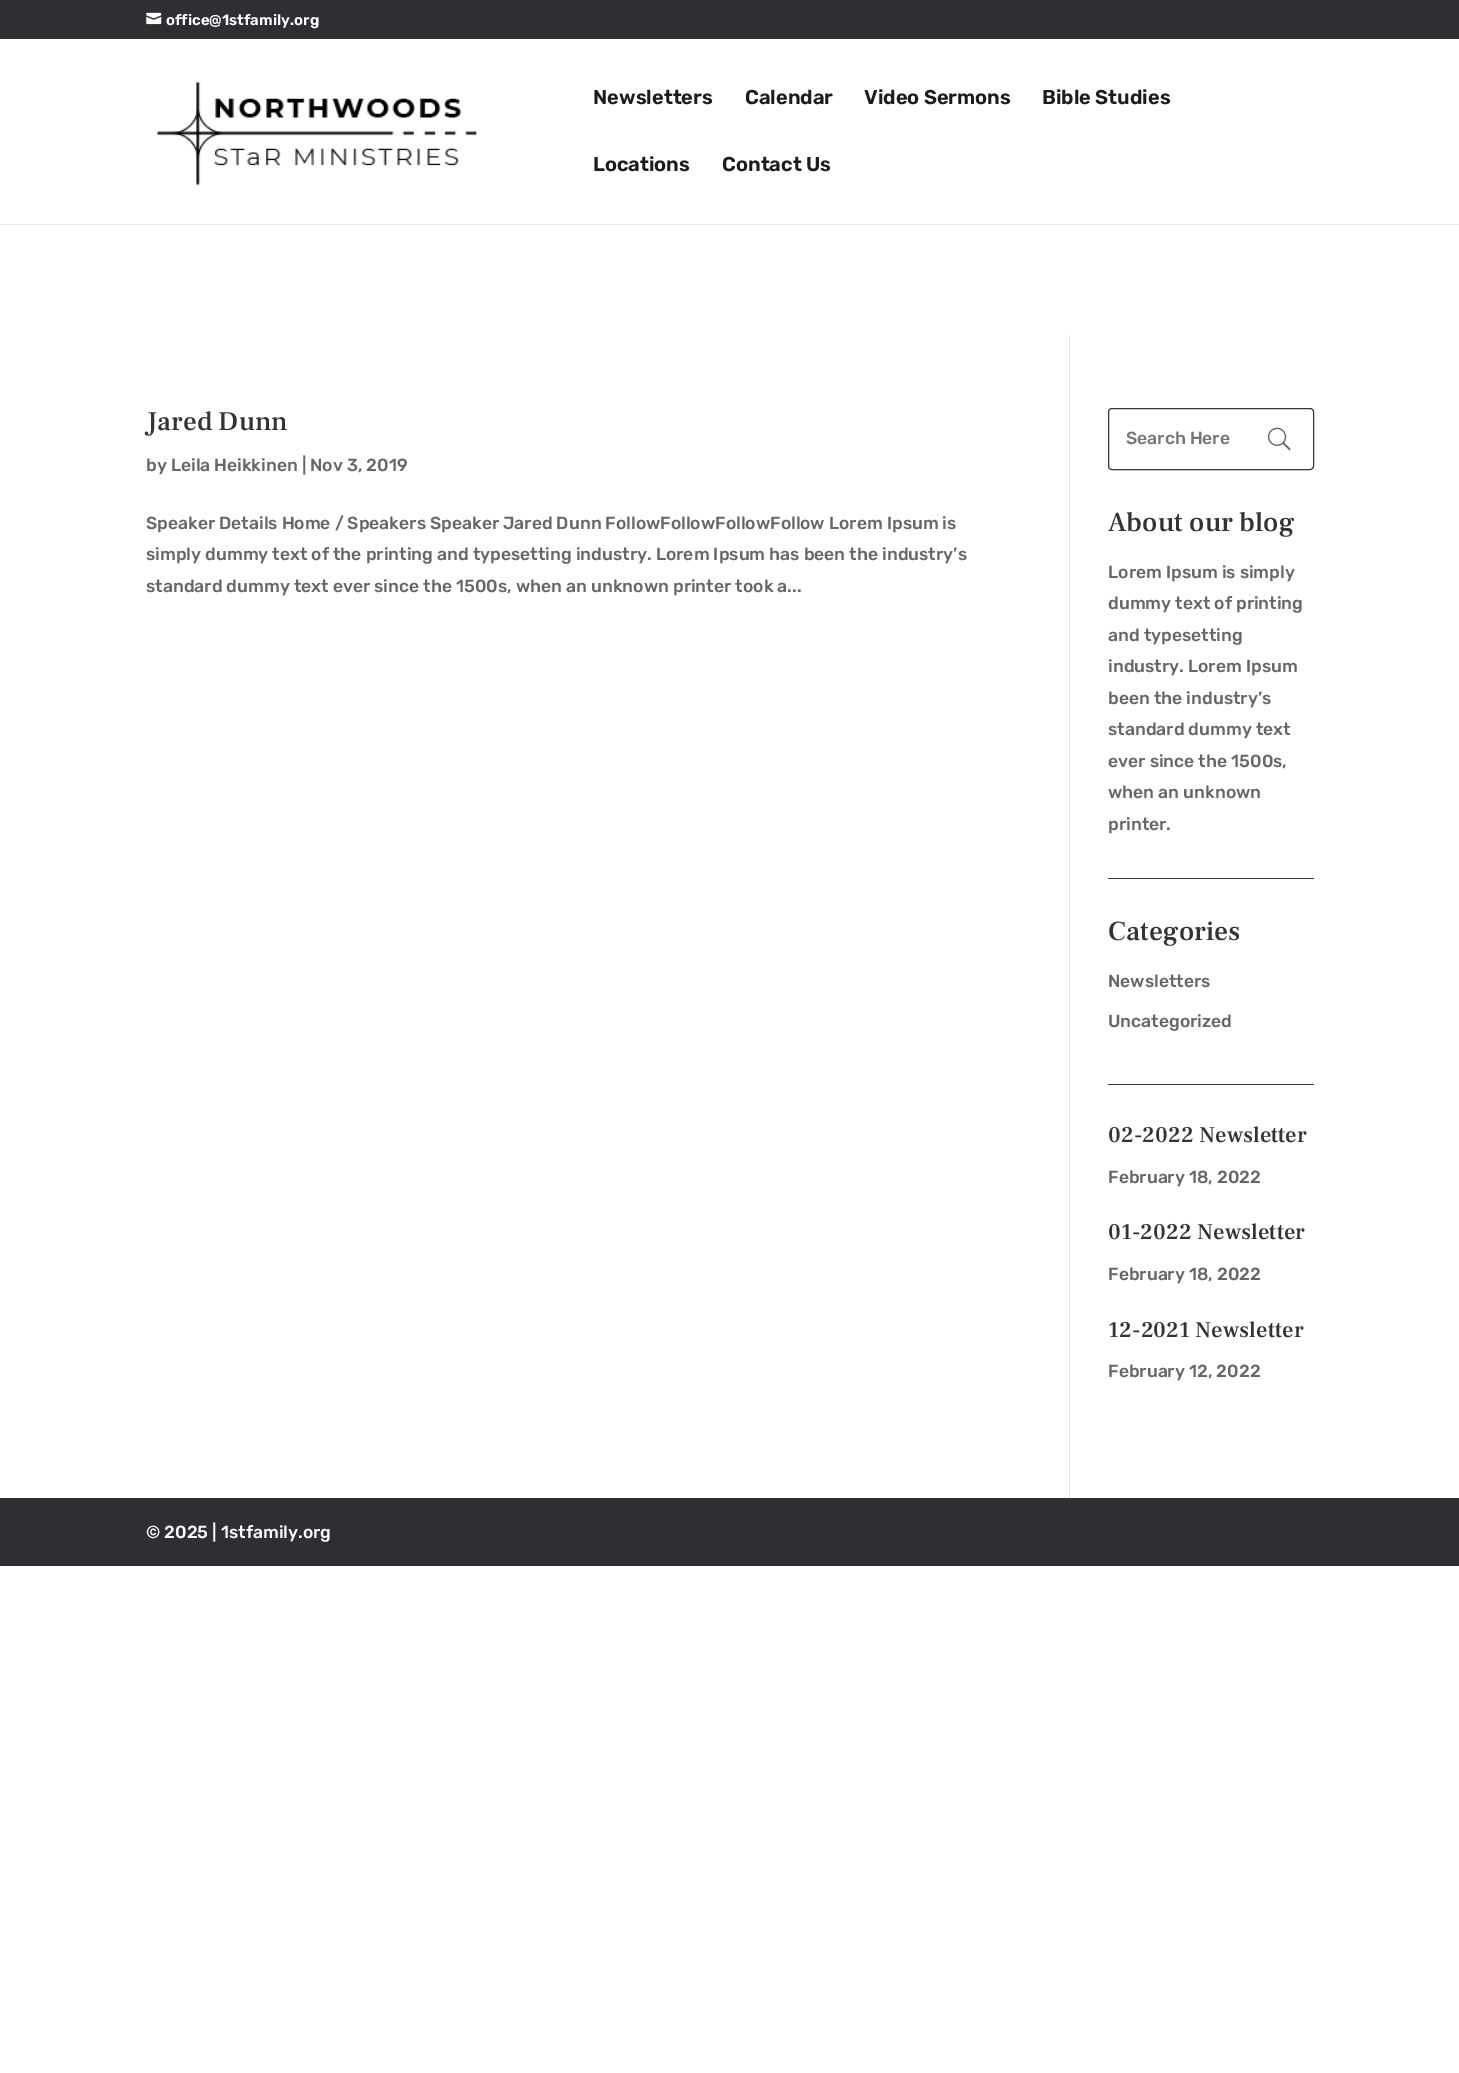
%!PS-Adobe-3.0
%%BoundingBox: 0 0 1459 2073
%%LanguageLevel: 3
%%Pages: 1
%%EndComments
%%BeginProlog
/setink { 3 { 255 div 3 1 roll } repeat setrgbcolor } def
/usefont { [ exch dup neg 0 0 3 -1 roll 0 0 ] selectfont } def
/drawtext { setink usefont moveto show } def
/fillbox { setink rectfill } def
/rrect { 5 dict begin { /r /h /w /y /x } { exch def } forall
  x r add y moveto x w add y 2 copy h add r arct x w add y h add x 1 index r arct
  x y h add x y r arct x y 2 copy exch w add exch r arct closepath end } def
/drawimage { 5 dict begin { /h /w /y /x /name } { exch def } forall
  gsave x y translate w h scale
  w h 8 [w 0 0 h 0 0] name (r) file false 3 colorimage grestore end } def
%%EndProlog
%%BeginSetup
<< /PageSize [1459 2073] >> setpagedevice
%%EndSetup
%%Page: 1 1
0 2073 translate 1 -1 scale
4 setmiterlimit
0 0 1459 2073 255 255 255 fillbox
0 0 1459 39 46 46 51 fillbox
(assets/img1.rgb) 146 12 16 13 drawimage
(office@1stfamily.org) 166 25 /Rubik-SemiBold 15 255 255 255 drawtext
0 224 1459 1 230 230 230 fillbox
(assets/img2.rgb) 157 82 320 104 drawimage
(Newsletters) 593 104 /Rubik-SemiBold 20 28 28 28 drawtext
(Calendar) 745 104 /Rubik-SemiBold 20 28 28 28 drawtext
(Video Sermons) 864 104 /Rubik-SemiBold 20 28 28 28 drawtext
(Bible Studies) 1042 104 /Rubik-SemiBold 20 28 28 28 drawtext
(Locations) 593 171 /Rubik-SemiBold 20 28 28 28 drawtext
(Contact Us) 722 171 /Rubik-SemiBold 20 28 28 28 drawtext
1069 335 1 1163 226 226 226 fillbox
(Jared Dunn) 146 430 /FrankRuhlLibre-Medium 27 51 51 51 drawtext
(by Leila Heikkinen | Nov 3, 2019) 146 471 /Rubik-Light 17.5 102 102 102 drawtext
(Speaker Details Home / Speakers Speaker Jared Dunn FollowFollowFollowFollow Lorem Ipsum is) 146 529 /Rubik-Light 17.5 102 102 102 drawtext
(simply dummy text of the printing and typesetting industry. Lorem Ipsum has been the industry’s) 146 560 /Rubik-Light 17.5 102 102 102 drawtext
(standard dummy text ever since the 1500s, when an unknown printer took a...) 146 592 /Rubik-Light 17.5 102 102 102 drawtext
55 55 55 setink
1108.5 408.5 205 61 3.5 rrect stroke
(Search Here) 1126 444 /Rubik-Light 17.5 117 117 117 drawtext
(assets/img3.rgb) 1267 427 24 24 drawimage
1108 878 206 1 55 55 55 fillbox
(About our blog) 1108 531 /FrankRuhlLibre-Medium 27.5 51 51 51 drawtext
(Lorem Ipsum is simply) 1108 578 /Rubik-Light 17.5 102 102 102 drawtext
(dummy text of printing) 1108 609 /Rubik-Light 17.5 102 102 102 drawtext
(and typesetting) 1108 641 /Rubik-Light 17.5 102 102 102 drawtext
(industry. Lorem Ipsum) 1108 672 /Rubik-Light 17.5 102 102 102 drawtext
(been the industry’s) 1108 704 /Rubik-Light 17.5 102 102 102 drawtext
(standard dummy text) 1108 735 /Rubik-Light 17.5 102 102 102 drawtext
(ever since the 1500s,) 1108 767 /Rubik-Light 17.5 102 102 102 drawtext
(when an unknown) 1108 798 /Rubik-Light 17.5 102 102 102 drawtext
(printer.) 1108 830 /Rubik-Light 17.5 102 102 102 drawtext
1108 1084 206 1 55 55 55 fillbox
(Categories) 1108 940 /FrankRuhlLibre-Medium 27.5 51 51 51 drawtext
(Newsletters) 1108 987 /Rubik-Light 17.5 102 102 102 drawtext
(Uncategorized) 1108 1027 /Rubik-Light 17.5 102 102 102 drawtext
(02-2022 Newsletter) 1108 1142 /FrankRuhlLibre-Medium 22.5 51 51 51 drawtext
(February 18, 2022) 1108 1183 /Rubik-Light 17.5 102 102 102 drawtext
(01-2022 Newsletter) 1108 1239 /FrankRuhlLibre-Medium 22.5 51 51 51 drawtext
(February 18, 2022) 1108 1280 /Rubik-Light 17.5 102 102 102 drawtext
(12-2021 Newsletter) 1108 1337 /FrankRuhlLibre-Medium 22.5 51 51 51 drawtext
(February 12, 2022) 1108 1377 /Rubik-Light 17.5 102 102 102 drawtext
0 1498 1459 68 46 46 51 fillbox
(© 2025 | 1stfamily.org) 146 1538 /Rubik-Light 17.5 255 255 255 drawtext
showpage
%%EOF
